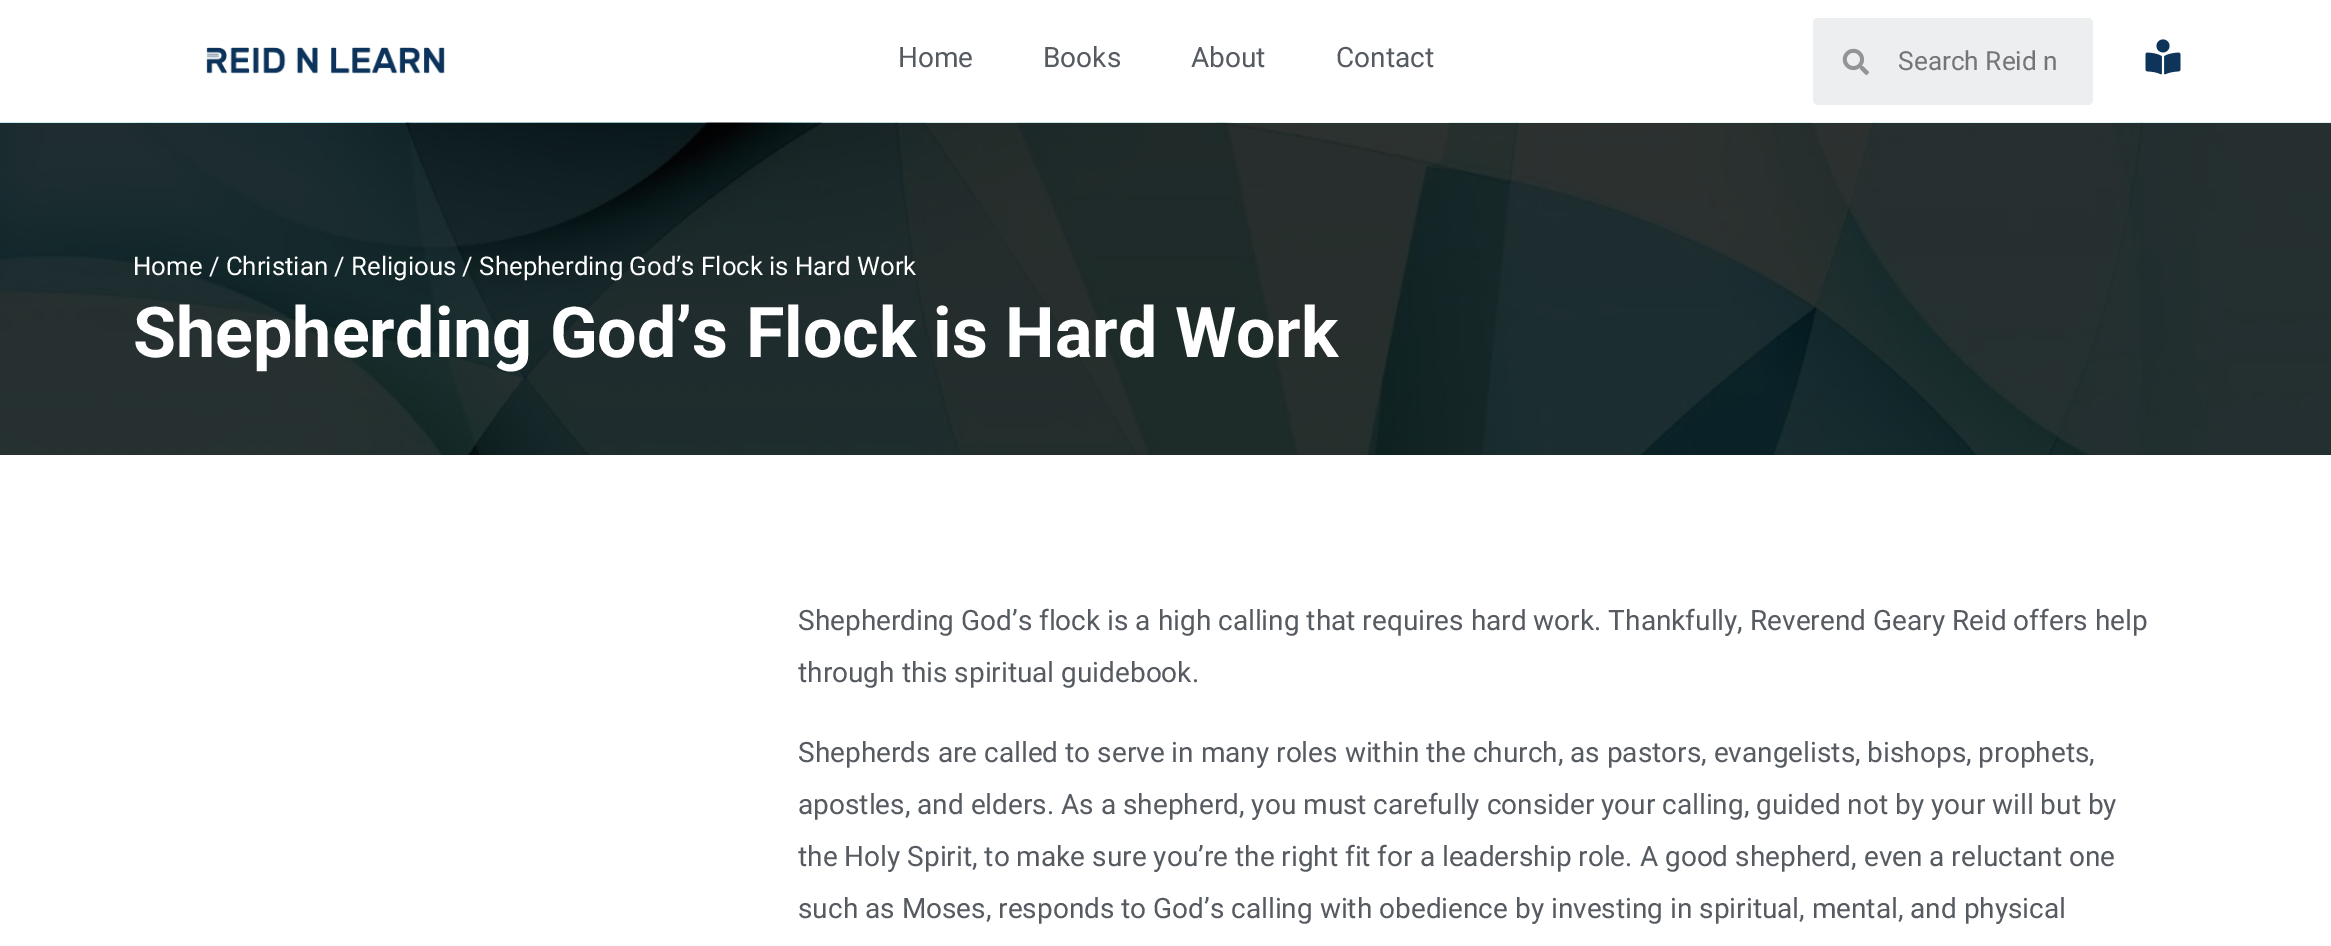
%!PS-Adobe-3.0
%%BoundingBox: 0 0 2331 946
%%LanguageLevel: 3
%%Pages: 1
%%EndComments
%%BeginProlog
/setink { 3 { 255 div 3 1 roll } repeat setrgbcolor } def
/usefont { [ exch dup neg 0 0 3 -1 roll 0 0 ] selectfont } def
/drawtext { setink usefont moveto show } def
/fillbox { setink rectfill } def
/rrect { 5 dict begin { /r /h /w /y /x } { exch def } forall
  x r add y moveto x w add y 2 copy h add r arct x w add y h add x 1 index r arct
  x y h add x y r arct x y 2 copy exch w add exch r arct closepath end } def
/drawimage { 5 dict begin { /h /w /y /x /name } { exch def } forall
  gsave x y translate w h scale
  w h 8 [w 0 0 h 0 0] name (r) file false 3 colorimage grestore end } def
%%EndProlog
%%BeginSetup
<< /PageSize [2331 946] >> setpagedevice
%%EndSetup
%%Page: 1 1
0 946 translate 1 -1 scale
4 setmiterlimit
0 0 2331 946 255 255 255 fillbox
(assets/img1.rgb) 206 47 239 27 drawimage
(Home) 898 67 /Roboto-Regular 28 86 90 97 drawtext
(Books) 1043 67 /Roboto-Regular 28 86 90 97 drawtext
(About) 1191 67 /Roboto-Regular 28 86 90 97 drawtext
(Contact) 1336 67 /Roboto-Regular 28 86 90 97 drawtext
236 238 239 setink
1813 18 280 87 5 rrect fill
(assets/img2.rgb) 1842 48 27 27 drawimage
(Search Reid n) 1898 70 /Roboto-Regular 26.25 117 117 117 drawtext
(assets/img3.rgb) 2145 39 36 36 drawimage
(assets/img4.rgb) 0 122 2331 333 drawimage
(Home / Christian / Religious / Shepherding God’s Flock is Hard Work) 133 275 /Roboto-Regular 25.75 255 255 255 drawtext
(Shepherding God’s Flock is Hard Work) 133 357 /Roboto-Bold 70 255 255 255 drawtext
(Shepherding God’s flock is a high calling that requires hard work. Thankfully, Reverend Geary Reid offers help) 798 630 /Roboto-Regular 28 86 90 97 drawtext
(through this spiritual guidebook.) 798 682 /Roboto-Regular 28 86 90 97 drawtext
(Shepherds are called to serve in many roles within the church, as pastors, evangelists, bishops, prophets,) 798 762 /Roboto-Regular 28 86 90 97 drawtext
(apostles, and elders. As a shepherd, you must carefully consider your calling, guided not by your will but by) 798 814 /Roboto-Regular 28 86 90 97 drawtext
(the Holy Spirit, to make sure you’re the right fit for a leadership role. A good shepherd, even a reluctant one) 798 866 /Roboto-Regular 28 86 90 97 drawtext
(such as Moses, responds to God’s calling with obedience by investing in spiritual, mental, and physical) 798 918 /Roboto-Regular 28 86 90 97 drawtext
showpage
%%EOF
